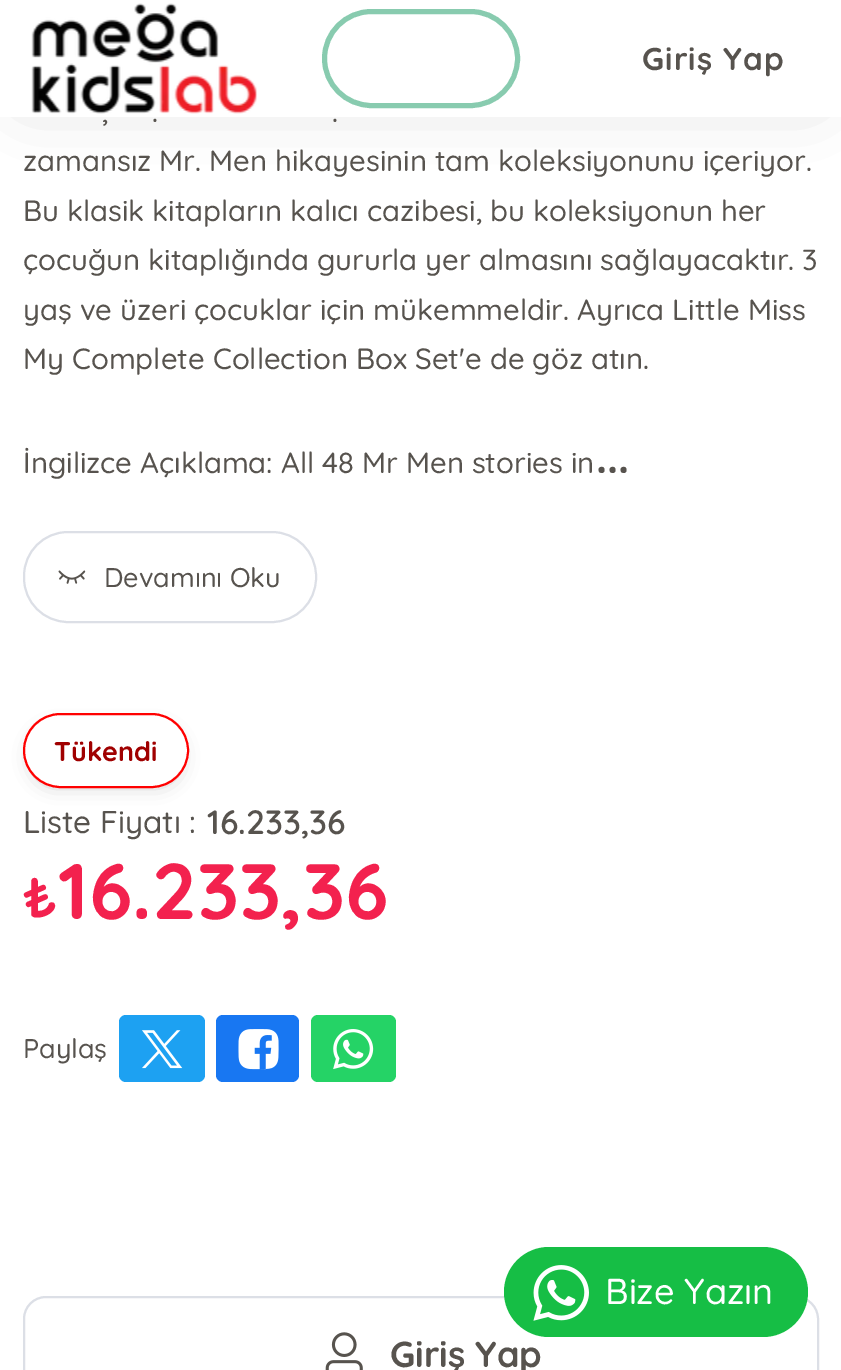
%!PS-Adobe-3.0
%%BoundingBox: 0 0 841 1370
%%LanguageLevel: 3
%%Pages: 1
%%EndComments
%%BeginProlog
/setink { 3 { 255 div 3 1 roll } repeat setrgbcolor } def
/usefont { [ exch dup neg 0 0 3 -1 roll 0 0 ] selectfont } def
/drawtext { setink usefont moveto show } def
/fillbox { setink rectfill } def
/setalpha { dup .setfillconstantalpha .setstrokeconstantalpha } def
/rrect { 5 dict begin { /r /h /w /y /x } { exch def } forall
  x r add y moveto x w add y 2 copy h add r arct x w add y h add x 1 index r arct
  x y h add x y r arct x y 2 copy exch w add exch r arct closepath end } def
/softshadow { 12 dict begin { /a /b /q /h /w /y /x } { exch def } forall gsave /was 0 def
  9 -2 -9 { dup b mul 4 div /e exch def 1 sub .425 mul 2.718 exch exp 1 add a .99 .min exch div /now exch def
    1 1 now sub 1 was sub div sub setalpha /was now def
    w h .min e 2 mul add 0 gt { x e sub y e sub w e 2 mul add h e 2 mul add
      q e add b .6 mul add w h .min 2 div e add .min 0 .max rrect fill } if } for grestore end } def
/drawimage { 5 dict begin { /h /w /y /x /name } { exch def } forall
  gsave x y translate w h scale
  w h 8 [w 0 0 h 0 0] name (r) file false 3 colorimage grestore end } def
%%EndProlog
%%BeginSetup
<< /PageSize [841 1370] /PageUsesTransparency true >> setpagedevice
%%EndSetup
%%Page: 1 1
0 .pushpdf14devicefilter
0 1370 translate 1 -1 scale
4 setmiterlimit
0 0 841 1370 255 255 255 fillbox
0 0 0 setink
29 29 783 59 0 34 0.25 softshadow
0 0 841 117 255 255 255 fillbox
(assets/img1.rgb) 31 3 226 111 drawimage
136 203 175 setink
5 setlinewidth
324.5 11.5 193 94 47 rrect stroke
/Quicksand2-Light 31.5 usefont
87 83 78 setink
642 70 moveto 1.1 0 (Giriş Yap) ashow
(,) 102 122 /Quicksand-Light 29.25 87 83 78 drawtext
(.) 152 122 /Quicksand-Light 29.25 87 83 78 drawtext
(.) 332 122 /Quicksand-Light 29.25 87 83 78 drawtext
(zamansız Mr. Men hikayesinin tam koleksiyonunu içeriyor.) 23 171 /Quicksand-Light 29.25 87 83 78 drawtext
(Bu klasik kitapların kalıcı cazibesi, bu koleksiyonun her) 23 221 /Quicksand-Light 29.25 87 83 78 drawtext
(çocuğun kitaplığında gururla yer almasını sağlayacaktır. 3) 23 270 /Quicksand-Light 29.25 87 83 78 drawtext
(yaş ve üzeri çocuklar için mükemmeldir. Ayrıca Little Miss) 23 320 /Quicksand-Light 29.25 87 83 78 drawtext
(My Complete Collection Box Set'e de göz atın.) 23 369 /Quicksand-Light 29.25 87 83 78 drawtext
(İngilizce Açıklama: All 48 Mr Men stories in) 23 473 /Quicksand-Light 29.25 87 83 78 drawtext
(...) 596 473 /Quicksand2-Light 45 87 83 78 drawtext
220 223 230 setink
2 setlinewidth
24 532 292 90 44 rrect stroke
(assets/img2.rgb) 58 570 28 14 drawimage
(Devamını Oku) 104 587 /Quicksand-Light 27 87 83 78 drawtext
gsave
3 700 moveto 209 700 lineto 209 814 lineto 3 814 lineto closepath 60.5 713 moveto 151.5 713 lineto 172 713 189 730 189 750.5 curveto 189 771 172 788 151.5 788 curveto 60.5 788 lineto 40 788 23 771 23 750.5 curveto 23 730 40 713 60.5 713 curveto closepath eoclip newpath
0 0 0 setink
34 731 144 52 26 10 0.3 softshadow
grestore
255 0 0 setink
24 714 164 73 36.5 rrect stroke
(Tükendi) 54 761 /Quicksand2-Light 27 160 0 0 drawtext
(Liste Fiyatı :) 23 833 /Quicksand-Light 31.5 87 83 78 drawtext
(16.233,36) 207 834 /Quicksand-SemiBold 33.75 87 83 78 drawtext
(₺) 23 917 /Quicksand2-Light 56 243 33 78 drawtext
(16.233,36) 58 919 /Quicksand2-Light 78.75 243 33 78 drawtext
(Paylaş) 23 1058 /Quicksand-Light 27 87 83 78 drawtext
29 161 242 setink
119 1015 86 67 7 rrect fill
(assets/img3.rgb) 142 1030 41 39 drawimage
24 119 242 setink
216 1015 83 67 7 rrect fill
(assets/img4.rgb) 238 1029 41 41 drawimage
37 211 102 setink
311 1015 85 67 7 rrect fill
(assets/img5.rgb) 333 1029 41 41 drawimage
220 223 230 setink
24 1297 794 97 22 rrect stroke
(assets/img6.rgb) 325 1332 38 38 drawimage
(Giriş Yap) 390 1367 /Quicksand2-Light 36 87 83 78 drawtext
22 190 69 setink
504 1247 304 90 45 rrect fill
(assets/img7.rgb) 533 1265 56 56 drawimage
(Bize Yazın) 605 1304 /Quicksand-Light 36 255 255 255 drawtext
.poppdf14devicefilter showpage
%%EOF
